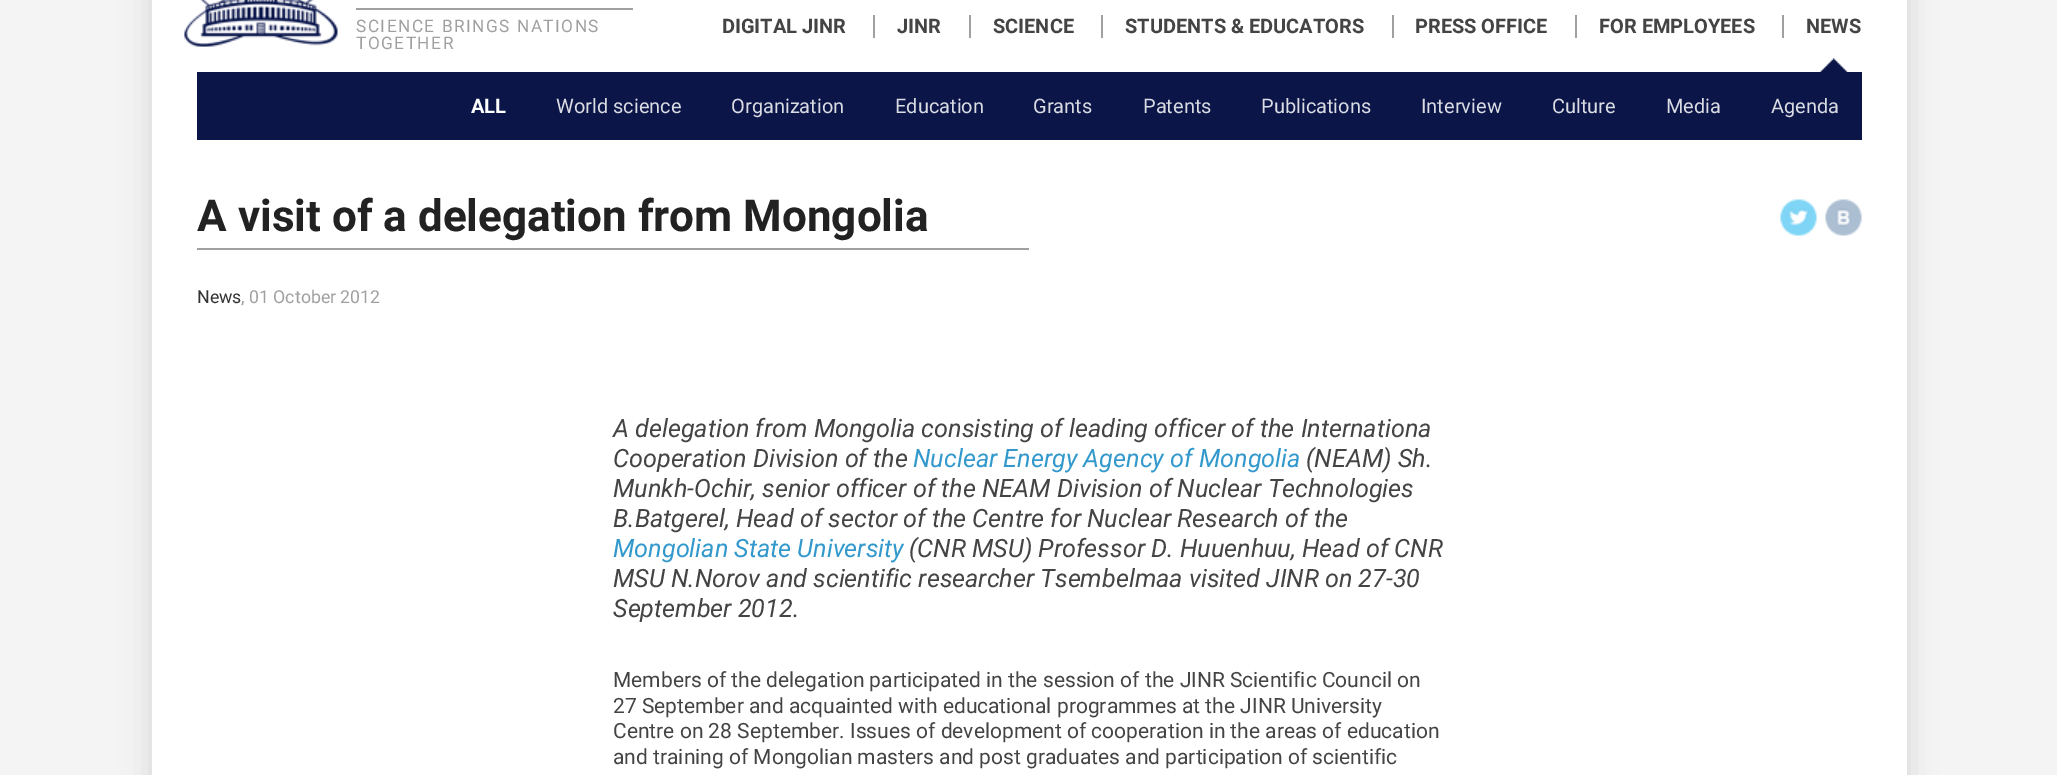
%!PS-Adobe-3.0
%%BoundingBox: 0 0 2057 775
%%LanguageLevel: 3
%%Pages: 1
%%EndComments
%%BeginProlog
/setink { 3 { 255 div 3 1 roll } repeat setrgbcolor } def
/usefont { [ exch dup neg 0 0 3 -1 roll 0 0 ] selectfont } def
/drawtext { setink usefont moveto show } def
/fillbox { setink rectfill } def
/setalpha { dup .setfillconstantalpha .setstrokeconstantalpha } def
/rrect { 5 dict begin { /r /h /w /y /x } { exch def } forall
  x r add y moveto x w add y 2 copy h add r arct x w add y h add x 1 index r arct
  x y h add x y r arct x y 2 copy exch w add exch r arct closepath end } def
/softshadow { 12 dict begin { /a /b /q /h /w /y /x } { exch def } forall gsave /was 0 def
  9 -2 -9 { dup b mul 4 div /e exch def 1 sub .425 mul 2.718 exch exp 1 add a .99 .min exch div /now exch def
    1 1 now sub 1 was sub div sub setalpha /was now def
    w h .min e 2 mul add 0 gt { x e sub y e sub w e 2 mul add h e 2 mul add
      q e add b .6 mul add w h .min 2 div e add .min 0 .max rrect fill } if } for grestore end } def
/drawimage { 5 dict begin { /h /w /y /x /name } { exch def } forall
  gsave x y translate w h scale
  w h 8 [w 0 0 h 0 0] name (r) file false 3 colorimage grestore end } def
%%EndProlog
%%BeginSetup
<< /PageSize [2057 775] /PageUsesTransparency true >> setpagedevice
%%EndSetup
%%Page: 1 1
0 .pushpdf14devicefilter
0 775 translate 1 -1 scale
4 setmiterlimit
0 0 2057 775 244 244 244 fillbox
211 211 211 setink
152 -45 1755 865 0 15 1 softshadow
152 0 1755 775 255 255 255 fillbox
(assets/img1.rgb) 1819 58 29 14 drawimage
(NEWS) 1806 33 /Roboto-Bold 20 68 68 68 drawtext
1782 15 2 23 160 160 160 fillbox
197 72 1665 68 11 21 72 fillbox
(ALL) 471 113 /Roboto-Bold 20 255 255 255 drawtext
(World science) 556 113 /Roboto-Regular 20 218 220 228 drawtext
(Organization) 731 113 /Roboto-Regular 20 218 220 228 drawtext
(Education) 895 113 /Roboto-Regular 20 218 220 228 drawtext
(Grants) 1033 113 /Roboto-Regular 20 218 220 228 drawtext
(Patents) 1143 113 /Roboto-Regular 20 218 220 228 drawtext
(Publications) 1261 113 /Roboto-Regular 20 218 220 228 drawtext
(Interview) 1421 113 /Roboto-Regular 20 218 220 228 drawtext
(Culture) 1552 113 /Roboto-Regular 20 218 220 228 drawtext
(Media) 1666 113 /Roboto-Regular 20 218 220 228 drawtext
(Agenda) 1771 113 /Roboto-Regular 20 218 220 228 drawtext
(DIGITAL JINR) 722 33 /Roboto-Bold 20 68 68 68 drawtext
(JINR) 897 33 /Roboto-Bold 20 68 68 68 drawtext
873 15 2 23 160 160 160 fillbox
(SCIENCE) 993 33 /Roboto-Bold 20 68 68 68 drawtext
969 15 2 23 160 160 160 fillbox
(STUDENTS & EDUCATORS) 1125 33 /Roboto-Bold 20 68 68 68 drawtext
1101 15 2 23 160 160 160 fillbox
(PRESS OFFICE) 1415 33 /Roboto-Bold 20 68 68 68 drawtext
1392 15 2 23 160 160 160 fillbox
(FOR EMPLOYEES) 1599 33 /Roboto-Bold 20 68 68 68 drawtext
1575 15 2 23 160 160 160 fillbox
(assets/img2.rgb) 184 0 154 47 drawimage
356 8 277 2 160 160 160 fillbox
/Roboto-Regular 17.25 usefont
356 32 moveto 1.5 0 (SCIENCE BRINGS NATIONS) ashow
356 49 moveto 1.5 0 (TOGETHER) ashow
197 248 832 2 160 160 160 fillbox
(A visit of a delegation from Mongolia) 197 231 /Roboto-Bold 44 34 34 34 drawtext
(News) 197 303 /Roboto-Regular 17.75 51 51 51 drawtext
(, 01 October 2012) 241 303 /Roboto-Regular 17.75 160 160 160 drawtext
(assets/img3.rgb) 1780 199 37 37 drawimage
(assets/img4.rgb) 1825 199 37 37 drawimage
(A delegation from Mongolia consisting of leading officer of the Internationa) 613 437 /Roboto-Italic 25.2 68 68 68 drawtext
(Cooperation Division of the) 613 467 /Roboto-Italic 25.2 68 68 68 drawtext
(Nuclear Energy Agency of Mongolia) 913 467 /Roboto-Italic 25.2 51 153 204 drawtext
(\(NEAM\) Sh.) 1306 467 /Roboto-Italic 25.2 68 68 68 drawtext
(Munkh-Ochir, senior officer of the NEAM Division of Nuclear Technologies) 613 497 /Roboto-Italic 25.2 68 68 68 drawtext
(B.Batgerel, Head of sector of the Centre for Nuclear Research of the) 613 527 /Roboto-Italic 25.2 68 68 68 drawtext
(Mongolian State University) 613 557 /Roboto-Italic 25.2 51 153 204 drawtext
(\(CNR MSU\) Professor D. Huuenhuu, Head of CNR) 909 557 /Roboto-Italic 25.2 68 68 68 drawtext
(MSU N.Norov and scientific researcher Tsembelmaa visited JINR on 27-30) 613 587 /Roboto-Italic 25.2 68 68 68 drawtext
(September 2012.) 613 617 /Roboto-Italic 25.2 68 68 68 drawtext
(Members of the delegation participated in the session of the JINR Scientific Council on) 613 687 /Roboto-Regular 21 68 68 68 drawtext
(27 September and acquainted with educational programmes at the JINR University) 613 713 /Roboto-Regular 21 68 68 68 drawtext
(Centre on 28 September. Issues of development of cooperation in the areas of education) 613 738 /Roboto-Regular 21 68 68 68 drawtext
(and training of Mongolian masters and post graduates and participation of scientific) 613 764 /Roboto-Regular 21 68 68 68 drawtext
.poppdf14devicefilter showpage
%%EOF
